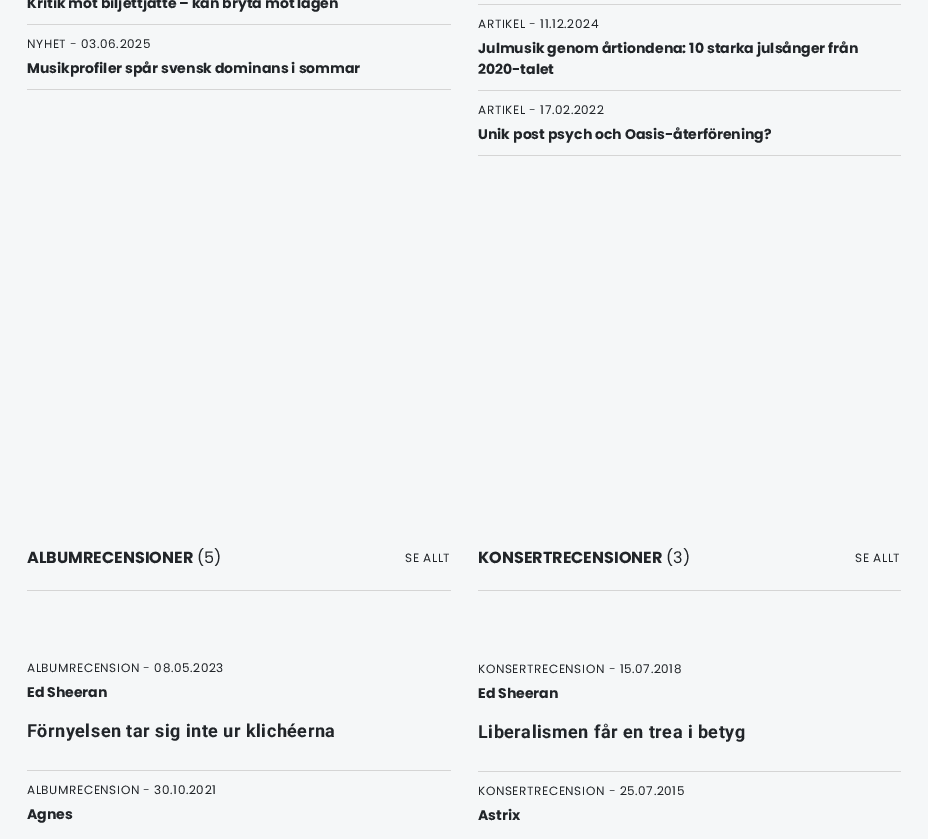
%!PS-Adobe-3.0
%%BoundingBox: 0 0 928 839
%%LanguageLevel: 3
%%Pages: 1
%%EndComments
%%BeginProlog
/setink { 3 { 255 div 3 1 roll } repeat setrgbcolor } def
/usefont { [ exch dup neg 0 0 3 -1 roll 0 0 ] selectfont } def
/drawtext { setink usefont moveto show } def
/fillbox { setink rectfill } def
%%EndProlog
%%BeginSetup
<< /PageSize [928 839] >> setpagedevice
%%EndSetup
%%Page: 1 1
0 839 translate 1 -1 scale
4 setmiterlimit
0 0 928 839 245 247 248 fillbox
27 24 424 1 213 213 213 fillbox
(Kritik mot biljettjätte – kan bryta mot lagen) 27 8 /Poppins-Bold 14 33 37 41 drawtext
27 89 424 1 213 213 213 fillbox
/Poppins-Regular 12 usefont
33 37 41 setink
27 48 moveto 0.6 0 (NYHET - 03.06.2025) ashow
(Musikprofiler spår svensk dominans i sommar) 27 73 /Poppins-Bold 14 33 37 41 drawtext
478 4 423 1 213 213 213 fillbox
478 90 423 1 213 213 213 fillbox
/Poppins-Regular 12 usefont
33 37 41 setink
478 28 moveto 0.6 0 (ARTIKEL - 11.12.2024) ashow
(Julmusik genom årtiondena: 10 starka julsånger från) 478 53 /Poppins-Bold 14 33 37 41 drawtext
(2020-talet) 478 74 /Poppins-Bold 14 33 37 41 drawtext
478 155 423 1 213 213 213 fillbox
/Poppins-Regular 12 usefont
33 37 41 setink
478 114 moveto 0.6 0 (ARTIKEL - 17.02.2022) ashow
(Unik post psych och Oasis-återförening?) 478 139 /Poppins-Bold 14 33 37 41 drawtext
27 590 424 1 213 213 213 fillbox
(ALBUMRECENSIONER) 27 563 /Poppins-Bold 16 33 37 41 drawtext
(\(5\)) 197 563 /Poppins-Regular 16 33 37 41 drawtext
/Poppins-Regular 12 usefont
405 562 moveto 0.6 0 (SE ALLT) ashow
27 770 424 1 213 213 213 fillbox
33 37 41 setink
27 672 moveto 0.6 0 (ALBUMRECENSION - 08.05.2023) ashow
(Ed Sheeran) 27 697 /Poppins-Bold 14 33 37 41 drawtext
/Roboto-Bold 18 usefont
27 737 moveto 0.5 0 (Förnyelsen tar sig inte ur klichéerna) ashow
/Poppins-Regular 12 usefont
27 794 moveto 0.6 0 (ALBUMRECENSION - 30.10.2021) ashow
(Agnes) 27 819 /Poppins-Bold 14 33 37 41 drawtext
478 590 423 1 213 213 213 fillbox
(KONSERTRECENSIONER) 478 563 /Poppins-Bold 16 33 37 41 drawtext
(\(3\)) 666 563 /Poppins-Regular 16 33 37 41 drawtext
/Poppins-Regular 12 usefont
855 562 moveto 0.6 0 (SE ALLT) ashow
478 771 423 1 213 213 213 fillbox
33 37 41 setink
478 673 moveto 0.6 0 (KONSERTRECENSION - 15.07.2018) ashow
(Ed Sheeran) 478 698 /Poppins-Bold 14 33 37 41 drawtext
/Roboto-Bold 18 usefont
478 738 moveto 0.5 0 (Liberalismen får en trea i betyg) ashow
/Poppins-Regular 12 usefont
478 795 moveto 0.6 0 (KONSERTRECENSION - 25.07.2015) ashow
(Astrix) 478 820 /Poppins-Bold 14 33 37 41 drawtext
showpage
%%EOF
